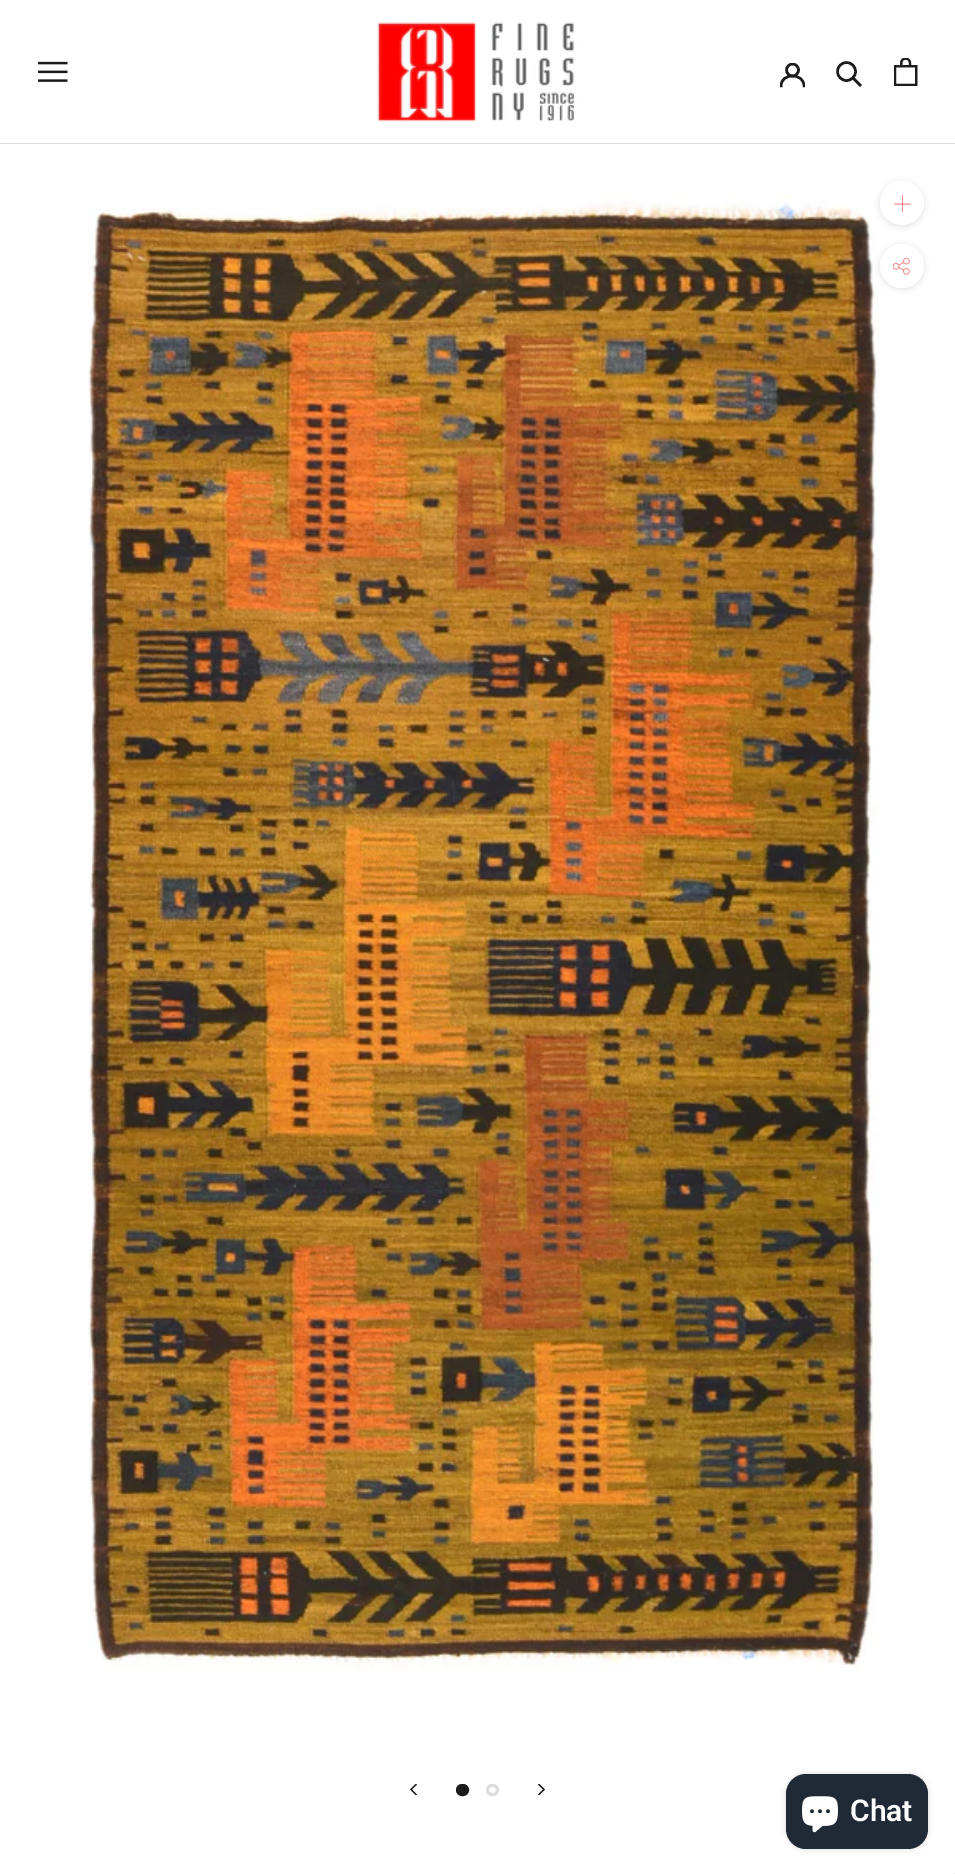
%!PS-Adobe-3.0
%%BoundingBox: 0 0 955 1874
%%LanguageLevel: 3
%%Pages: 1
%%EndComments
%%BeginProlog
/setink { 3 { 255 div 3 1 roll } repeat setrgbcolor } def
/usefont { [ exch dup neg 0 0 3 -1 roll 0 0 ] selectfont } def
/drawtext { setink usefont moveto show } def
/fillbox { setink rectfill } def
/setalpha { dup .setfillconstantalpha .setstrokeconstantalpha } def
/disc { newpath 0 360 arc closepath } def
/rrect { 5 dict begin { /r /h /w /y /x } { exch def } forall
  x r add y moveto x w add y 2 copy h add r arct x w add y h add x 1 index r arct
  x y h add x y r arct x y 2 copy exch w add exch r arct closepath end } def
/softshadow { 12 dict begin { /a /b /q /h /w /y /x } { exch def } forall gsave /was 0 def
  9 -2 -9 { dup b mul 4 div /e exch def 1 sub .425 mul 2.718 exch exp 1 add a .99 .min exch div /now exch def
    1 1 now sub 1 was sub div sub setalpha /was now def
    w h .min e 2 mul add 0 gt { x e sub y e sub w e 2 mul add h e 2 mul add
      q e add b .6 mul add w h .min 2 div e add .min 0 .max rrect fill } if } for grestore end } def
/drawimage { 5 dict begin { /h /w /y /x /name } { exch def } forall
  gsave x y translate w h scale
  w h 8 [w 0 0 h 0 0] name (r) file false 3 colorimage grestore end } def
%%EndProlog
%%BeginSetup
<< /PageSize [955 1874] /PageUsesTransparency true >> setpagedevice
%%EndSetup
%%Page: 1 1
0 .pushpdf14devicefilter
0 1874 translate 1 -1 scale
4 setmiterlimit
0 0 955 1874 255 255 255 fillbox
0 143 955 1 221 221 221 fillbox
(assets/img1.rgb) 38 61 30 21 drawimage
(assets/img2.rgb) 377 22 201 100 drawimage
gsave
780 63 25 25 rectclip
28 27 27 setink
2.5 setlinewidth
2 setlinecap
781 86 moveto 781 72.5 804 72.5 804 86 curveto stroke
0 setlinecap
792.5 70 6 disc stroke
grestore
28 27 27 setink
2.5 setlinewidth
2 setlinecap
860 85 moveto 853 78 lineto stroke
0 setlinecap
846.5 71.5 9 disc stroke
(assets/img3.rgb) 894 58 24 28 drawimage
(assets/img4.rgb) 88 194 791 1477 drawimage
54 54 54 setink
880 183 44 43 21.5 3 0.15 softshadow
255 255 255 setink
902 203 22 disc fill
902 195 1 17 241 144 144 fillbox
0.5 setalpha
226 33 32 setink
1.1 setlinewidth
2 setlinecap
895 204 moveto 910 204 lineto stroke
1 setalpha
54 54 54 setink
880 245 44 44 22 3 0.15 softshadow
255 255 255 setink
902 266 22 disc fill
(assets/img5.rgb) 893 257 17 18 drawimage
gsave
880 244 44 44 22 rrect clip newpath
0 setlinecap
909.5 285 moveto 894 300 lineto 909.5 300 moveto 894 285 lineto stroke
grestore
gsave
410 1784 8 11 rectclip
28 27 27 setink
1.2 setlinewidth
416 1794.5 moveto 411 1789.5 lineto 416 1784.5 lineto stroke
grestore
28 27 27 setink
457.5 1785.5 10 9 4.5 rrect gsave fill grestore
3 setlinewidth
0 setlinecap
stroke
221 221 221 setink
487.5 1785.5 10 9 4.5 rrect stroke
gsave
538 1784 7 11 rectclip
28 27 27 setink
1.2 setlinewidth
2 setlinecap
539 1794.5 moveto 544 1789.5 lineto 539 1784.5 lineto stroke
grestore
0 0 0 setink
786 1774 142 75 20 3 0.15 softshadow
32 42 54 setink
786 1774 142 75 20 rrect fill
(assets/img6.rgb) 802 1796 36 37 drawimage
(Chat) 850 1821 /Roboto-SemiBold 30 255 255 255 drawtext
953 1873 2 1 245 245 245 fillbox
.poppdf14devicefilter showpage
%%EOF
